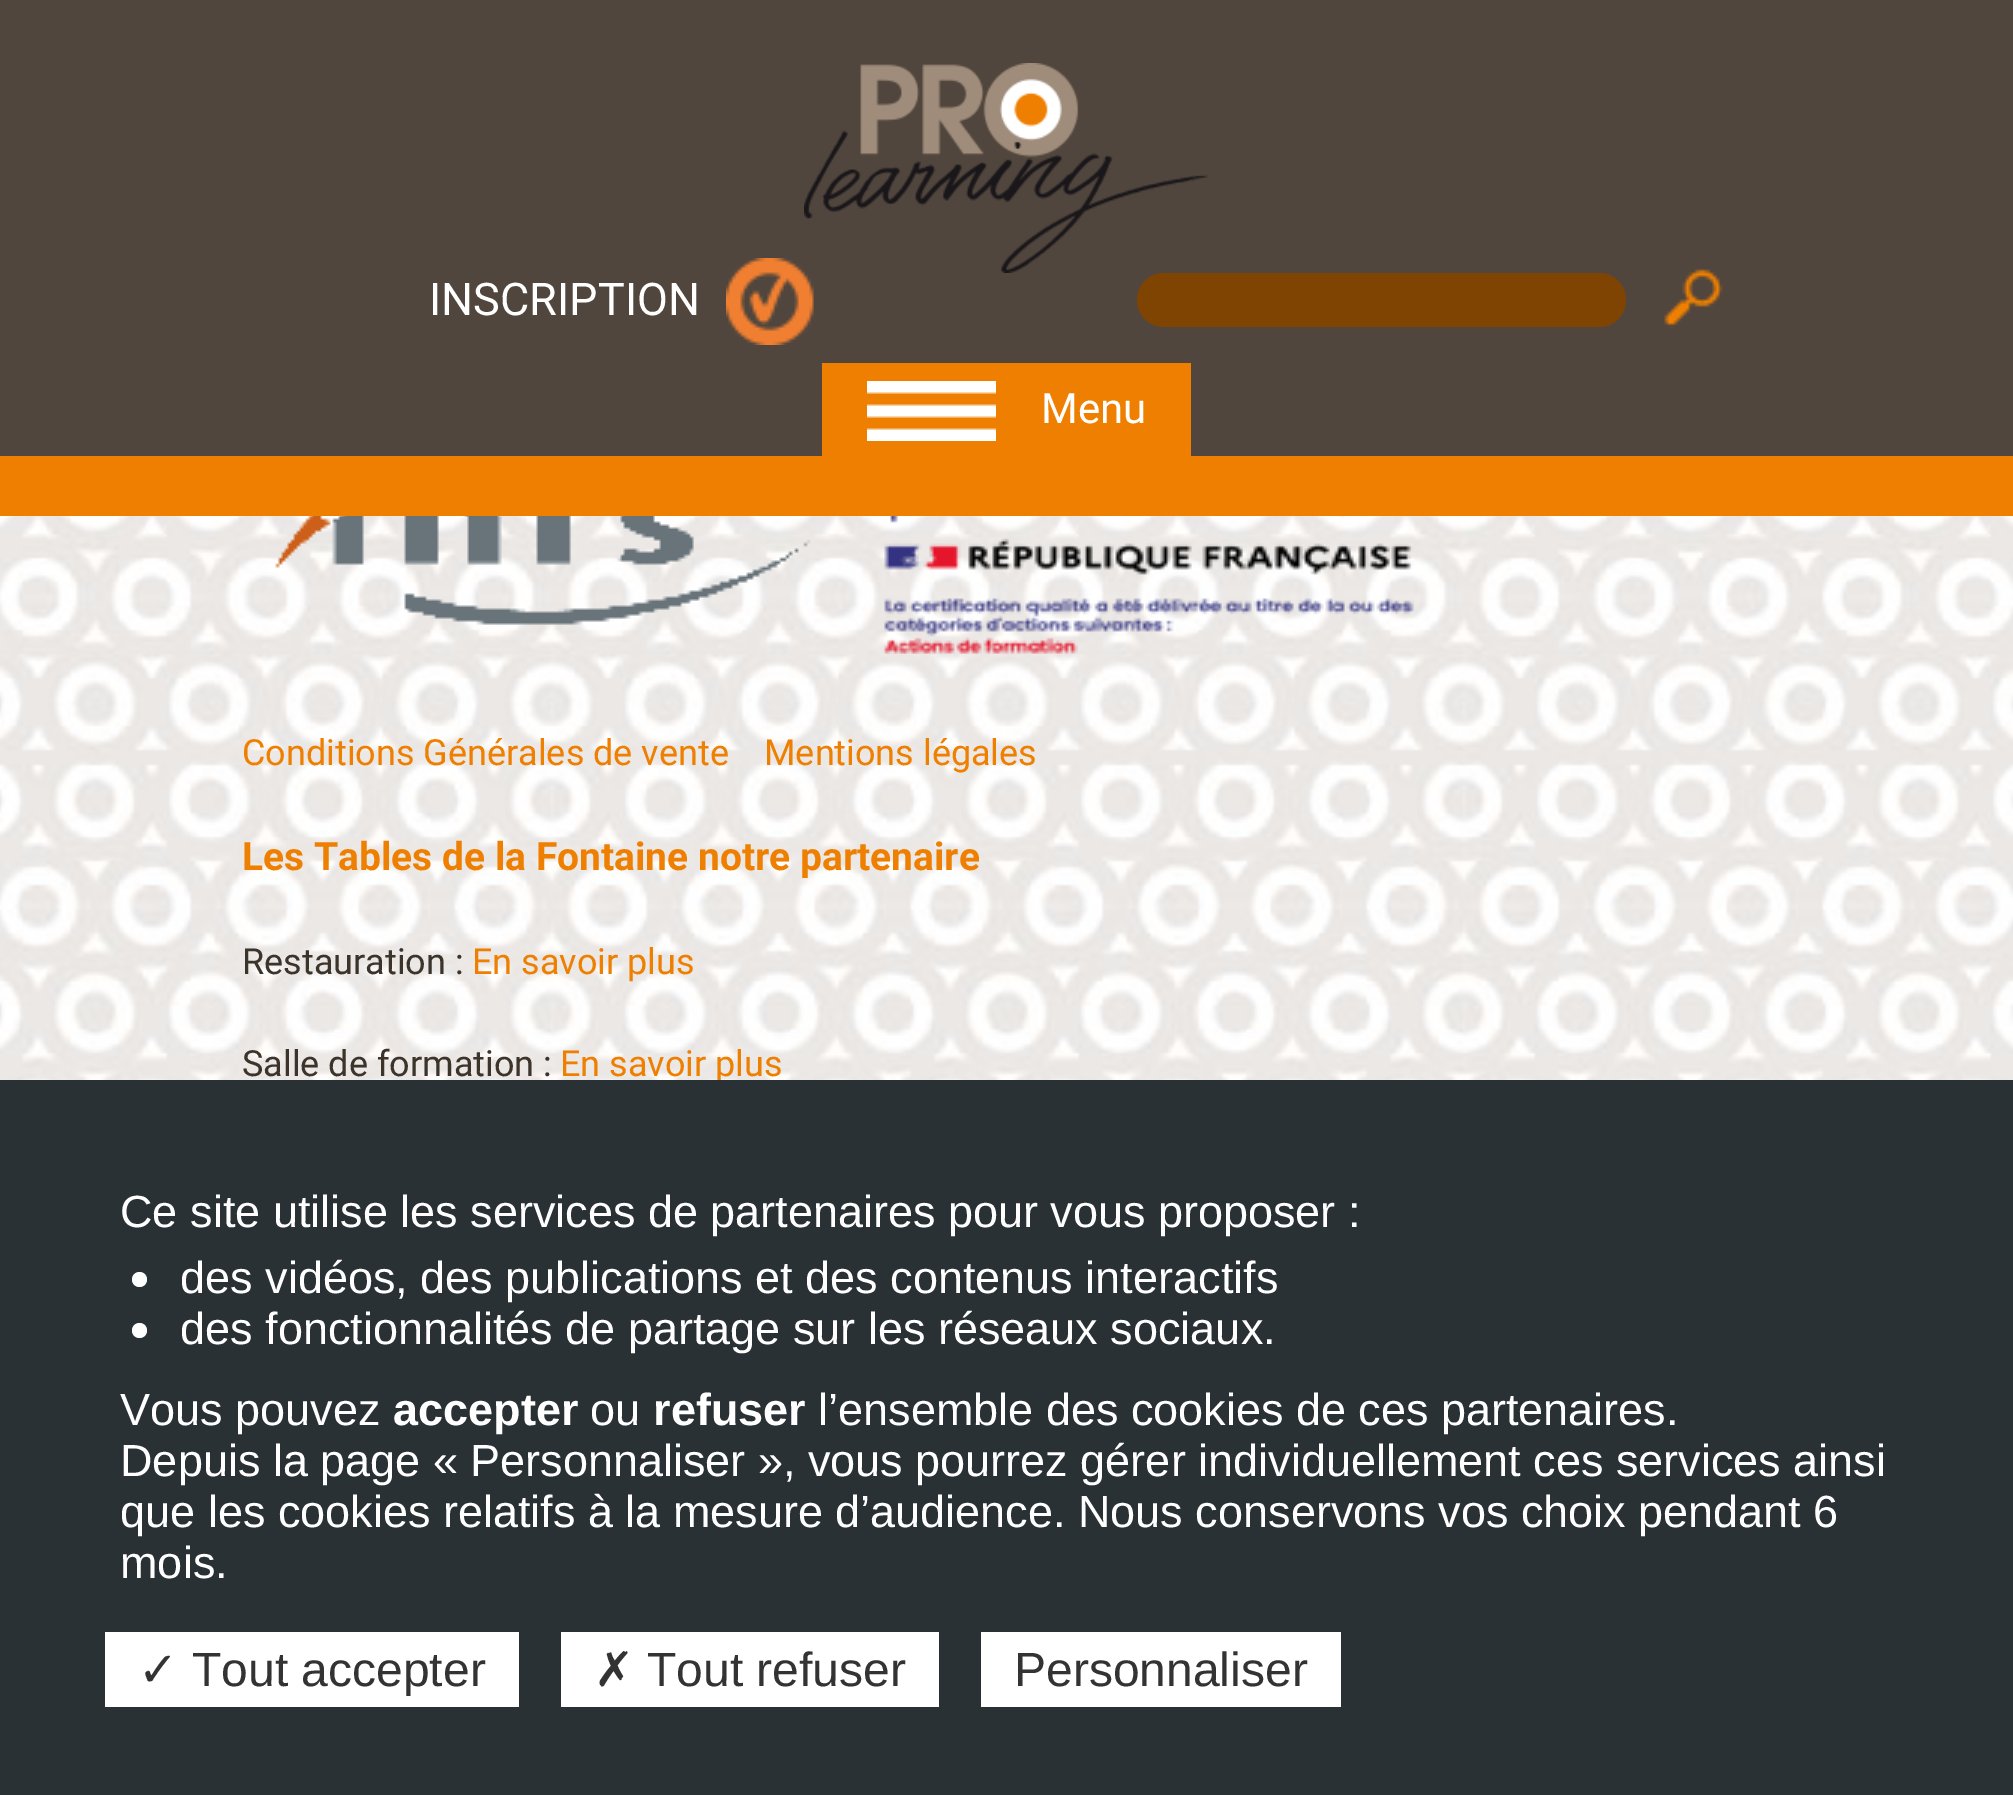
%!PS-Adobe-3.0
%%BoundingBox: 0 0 2013 1795
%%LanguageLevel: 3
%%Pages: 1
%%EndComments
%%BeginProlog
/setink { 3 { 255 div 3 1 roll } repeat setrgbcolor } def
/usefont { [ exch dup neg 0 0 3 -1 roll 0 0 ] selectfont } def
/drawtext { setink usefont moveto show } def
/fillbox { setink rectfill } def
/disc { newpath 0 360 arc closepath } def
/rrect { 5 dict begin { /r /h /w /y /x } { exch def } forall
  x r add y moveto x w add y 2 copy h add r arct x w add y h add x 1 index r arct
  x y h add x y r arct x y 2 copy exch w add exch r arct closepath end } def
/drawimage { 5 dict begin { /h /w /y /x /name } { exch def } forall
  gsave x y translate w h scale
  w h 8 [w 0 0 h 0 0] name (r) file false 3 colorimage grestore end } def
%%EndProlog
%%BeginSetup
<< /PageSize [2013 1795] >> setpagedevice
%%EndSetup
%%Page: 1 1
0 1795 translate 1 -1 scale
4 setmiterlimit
0 0 2013 1795 255 255 255 fillbox
0 0 2013 456 81 70 61 fillbox
0 456 2013 60 238 127 1 fillbox
(assets/img1.rgb) 804 63 404 210 drawimage
(INSCRIPTION) 429 315 /Roboto-Regular 45 255 255 255 drawtext
(assets/img2.rgb) 726 258 88 87 drawimage
127 68 1 setink
1137 273 489 54 27 rrect fill
(assets/img3.rgb) 1664 269 59 59 drawimage
822 363 369 93 238 127 1 fillbox
(assets/img4.rgb) 867 381 129 60 drawimage
(Menu) 1041 423 /Roboto-Regular 42 255 255 255 drawtext
(assets/img5.rgb) 0 516 2013 564 drawimage
(assets/img6.rgb) 275 516 536 109 drawimage
(assets/img7.rgb) 884 516 530 138 drawimage
(Conditions Générales de vente) 242 765 /Roboto-Regular 36 238 127 1 drawtext
(Mentions légales) 764 765 /Roboto-Regular 36 238 127 1 drawtext
(Les Tables de la Fontaine notre partenaire) 242 870 /Roboto-Bold 39 238 127 1 drawtext
(Restauration :) 242 974 /Roboto-Regular 36 60 51 43 drawtext
(En savoir plus) 472 974 /Roboto-Regular 36 238 127 1 drawtext
(Salle de formation :) 242 1076 /Roboto-Regular 36 60 51 43 drawtext
(En savoir plus) 560 1076 /Roboto-Regular 36 238 127 1 drawtext
0 1080 2013 715 42 49 53 fillbox
(Ce site utilise les services de partenaires pour vous proposer :) 120 1227 /LiberationSans-Regular 45 255 255 255 drawtext
139.5 1279.5 7.5 disc fill
(des vidéos, des publications et des contenus interactifs) 180 1293 /LiberationSans-Regular 45 255 255 255 drawtext
139.5 1330.5 7.5 disc fill
(des fonctionnalités de partage sur les réseaux sociaux.) 180 1344 /LiberationSans-Regular 45 255 255 255 drawtext
(Vous pouvez) 120 1425 /LiberationSans-Regular 45 255 255 255 drawtext
(accepter) 393 1425 /LiberationSans-Bold 45 255 255 255 drawtext
(ou) 590 1425 /LiberationSans-Regular 45 255 255 255 drawtext
(refuser) 653 1425 /LiberationSans-Bold 45 255 255 255 drawtext
(l’ensemble des cookies de ces partenaires.) 818 1425 /LiberationSans-Regular 45 255 255 255 drawtext
(Depuis la page « Personnaliser », vous pourrez gérer individuellement ces services ainsi) 120 1476 /LiberationSans-Regular 45 255 255 255 drawtext
(que les cookies relatifs à la mesure d’audience. Nous conservons vos choix pendant 6) 120 1527 /LiberationSans-Regular 45 255 255 255 drawtext
(mois.) 120 1578 /LiberationSans-Regular 45 255 255 255 drawtext
105 1632 414 75 255 255 255 fillbox
(✓) 138 1686 /DejaVuSans-Regular 48 51 51 51 drawtext
(Tout accepter) 192 1686 /LiberationSans-Regular 48 51 51 51 drawtext
561 1632 378 75 255 255 255 fillbox
(✗) 594 1686 /DejaVuSans-Regular 48 51 51 51 drawtext
(Tout refuser) 647 1686 /LiberationSans-Regular 48 51 51 51 drawtext
981 1632 360 75 255 255 255 fillbox
(Personnaliser) 1014 1686 /LiberationSans-Regular 48 51 51 51 drawtext
showpage
%%EOF
